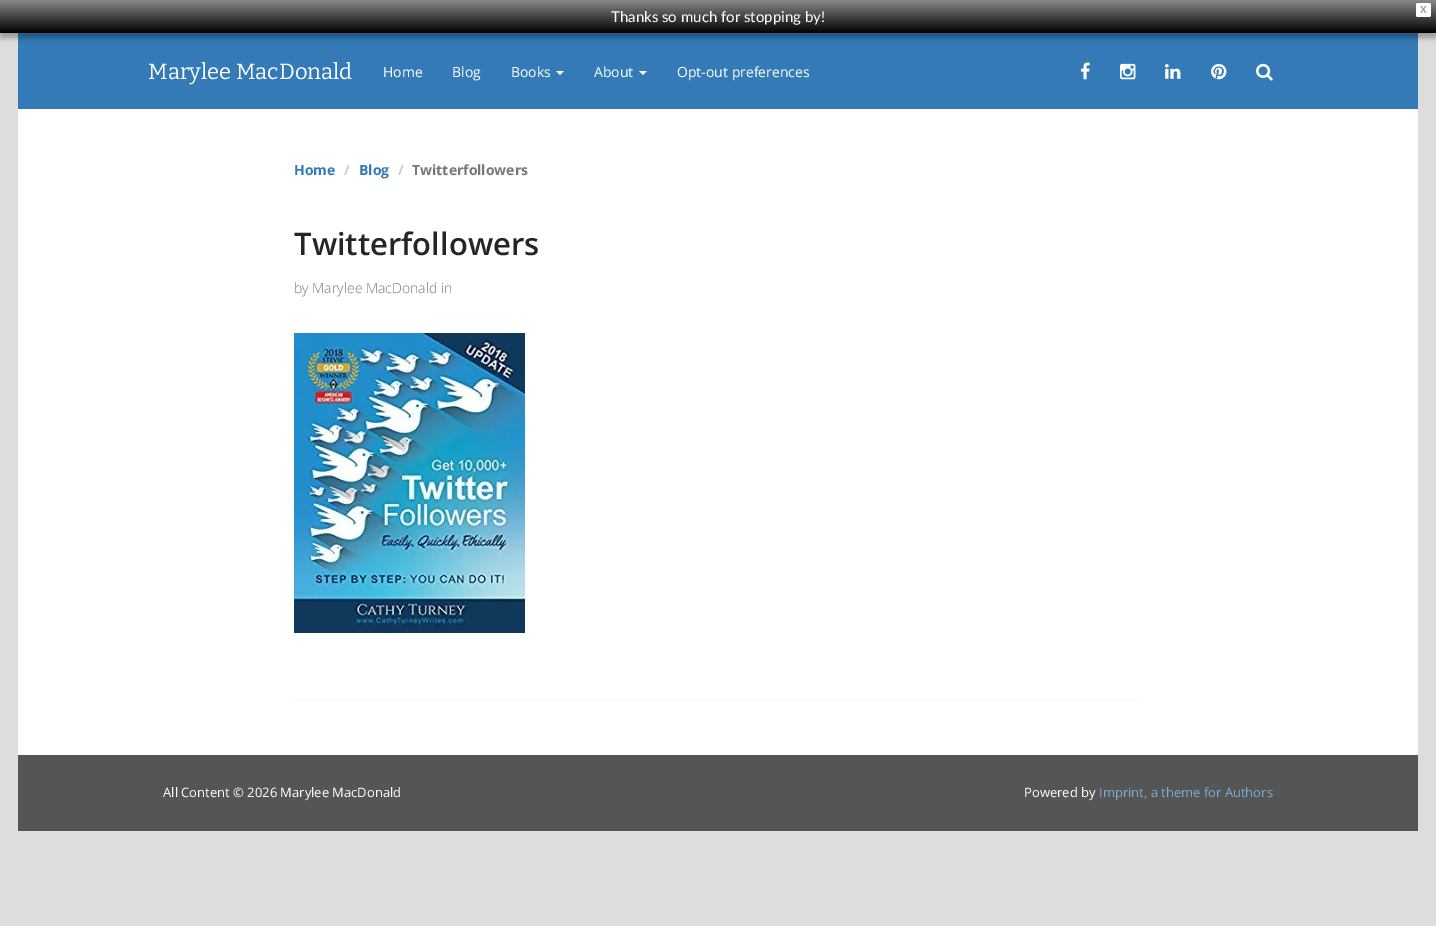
%!PS-Adobe-3.0
%%BoundingBox: 0 0 1436 926
%%LanguageLevel: 3
%%Pages: 1
%%EndComments
%%BeginProlog
/setink { 3 { 255 div 3 1 roll } repeat setrgbcolor } def
/usefont { [ exch dup neg 0 0 3 -1 roll 0 0 ] selectfont } def
/drawtext { setink usefont moveto show } def
/fillbox { setink rectfill } def
/setalpha { dup .setfillconstantalpha .setstrokeconstantalpha } def
/rrect { 5 dict begin { /r /h /w /y /x } { exch def } forall
  x r add y moveto x w add y 2 copy h add r arct x w add y h add x 1 index r arct
  x y h add x y r arct x y 2 copy exch w add exch r arct closepath end } def
/softshadow { 12 dict begin { /a /b /q /h /w /y /x } { exch def } forall gsave /was 0 def
  9 -2 -9 { dup b mul 4 div /e exch def 1 sub .425 mul 2.718 exch exp 1 add a .99 .min exch div /now exch def
    1 1 now sub 1 was sub div sub setalpha /was now def
    w h .min e 2 mul add 0 gt { x e sub y e sub w e 2 mul add h e 2 mul add
      q e add b .6 mul add w h .min 2 div e add .min 0 .max rrect fill } if } for grestore end } def
/drawimage { 5 dict begin { /h /w /y /x /name } { exch def } forall
  gsave x y translate w h scale
  w h 8 [w 0 0 h 0 0] name (r) file false 3 colorimage grestore end } def
%%EndProlog
%%BeginSetup
<< /PageSize [1436 926] /PageUsesTransparency true >> setpagedevice
%%EndSetup
%%Page: 1 1
0 .pushpdf14devicefilter
0 926 translate 1 -1 scale
4 setmiterlimit
0 0 1436 926 221 221 221 fillbox
18 33 1400 76 51 122 183 fillbox
0 0 0 setink
0 5 1436 33 0 2.5 0.3 softshadow
gsave 0 0 moveto 1436 0 lineto 1436 33 lineto 0 33 lineto closepath clip newpath
<< /ShadingType 2 /ColorSpace /DeviceRGB /Coords [718 0 718 33] /Extend [true true] /Function << /FunctionType 2 /Domain [0 1] /C0 [0.533 0.533 0.533] /C1 [0 0 0] /N 1 >> >> shfill grestore
(Thanks so much for stopping by!) 611 22 /Lato-Regular 15 255 255 255 drawtext
1416 3 15 14 2 rrect fill
(X) 1420 13 /LiberationSans-Bold 10 153 153 153 drawtext
18 109 1400 646 255 255 255 fillbox
(Marylee MacDonald) 148 79 /Bitter-Regular 22 255 255 255 drawtext
(Home) 383 77 /OpenSans-Regular 14 255 255 255 drawtext
(Blog) 452 77 /OpenSans-Regular 14 255 255 255 drawtext
(Books) 511 77 /OpenSans-Regular 14 255 255 255 drawtext
556 71 moveto 564 71 lineto 560 75 lineto closepath fill
(About) 594 77 /OpenSans-Regular 14 255 255 255 drawtext
639 71 moveto 647 71 lineto 643 75 lineto closepath fill
(Opt-out preferences) 677 77 /OpenSans-Regular 14 255 255 255 drawtext
(assets/img1.rgb) 1080 62 10 18 drawimage
(assets/img2.rgb) 1120 63 16 17 drawimage
(assets/img3.rgb) 1165 64 16 15 drawimage
(assets/img4.rgb) 1211 63 16 17 drawimage
(assets/img5.rgb) 1256 63 17 18 drawimage
(Home) 294 175 /OpenSans-Bold 14 51 122 183 drawtext
(/) 344 175 /OpenSans-Bold 14 204 204 204 drawtext
(Blog) 359 175 /OpenSans-Bold 14 51 122 183 drawtext
(/) 398 175 /OpenSans-Bold 14 204 204 204 drawtext
(Twitterfollowers) 412 175 /OpenSans-Bold 14 119 119 119 drawtext
(Twitterfollowers) 294 255 /OpenSans-SemiBold 31 37 37 37 drawtext
(by Marylee MacDonald in) 294 293 /OpenSans-Light 14 119 119 119 drawtext
(assets/img6.rgb) 294 333 231 300 drawimage
294 699 848 1 246 246 246 fillbox
18 755 1400 76 85 85 85 fillbox
(All Content © 2026 Marylee MacDonald) 163 797 /OpenSans-Regular 13 255 255 255 drawtext
(Powered by) 1024 797 /OpenSans-Regular 13 255 255 255 drawtext
(Imprint, a theme for Authors) 1099 797 /OpenSans-Regular 13 120 172 217 drawtext
.poppdf14devicefilter showpage
%%EOF
